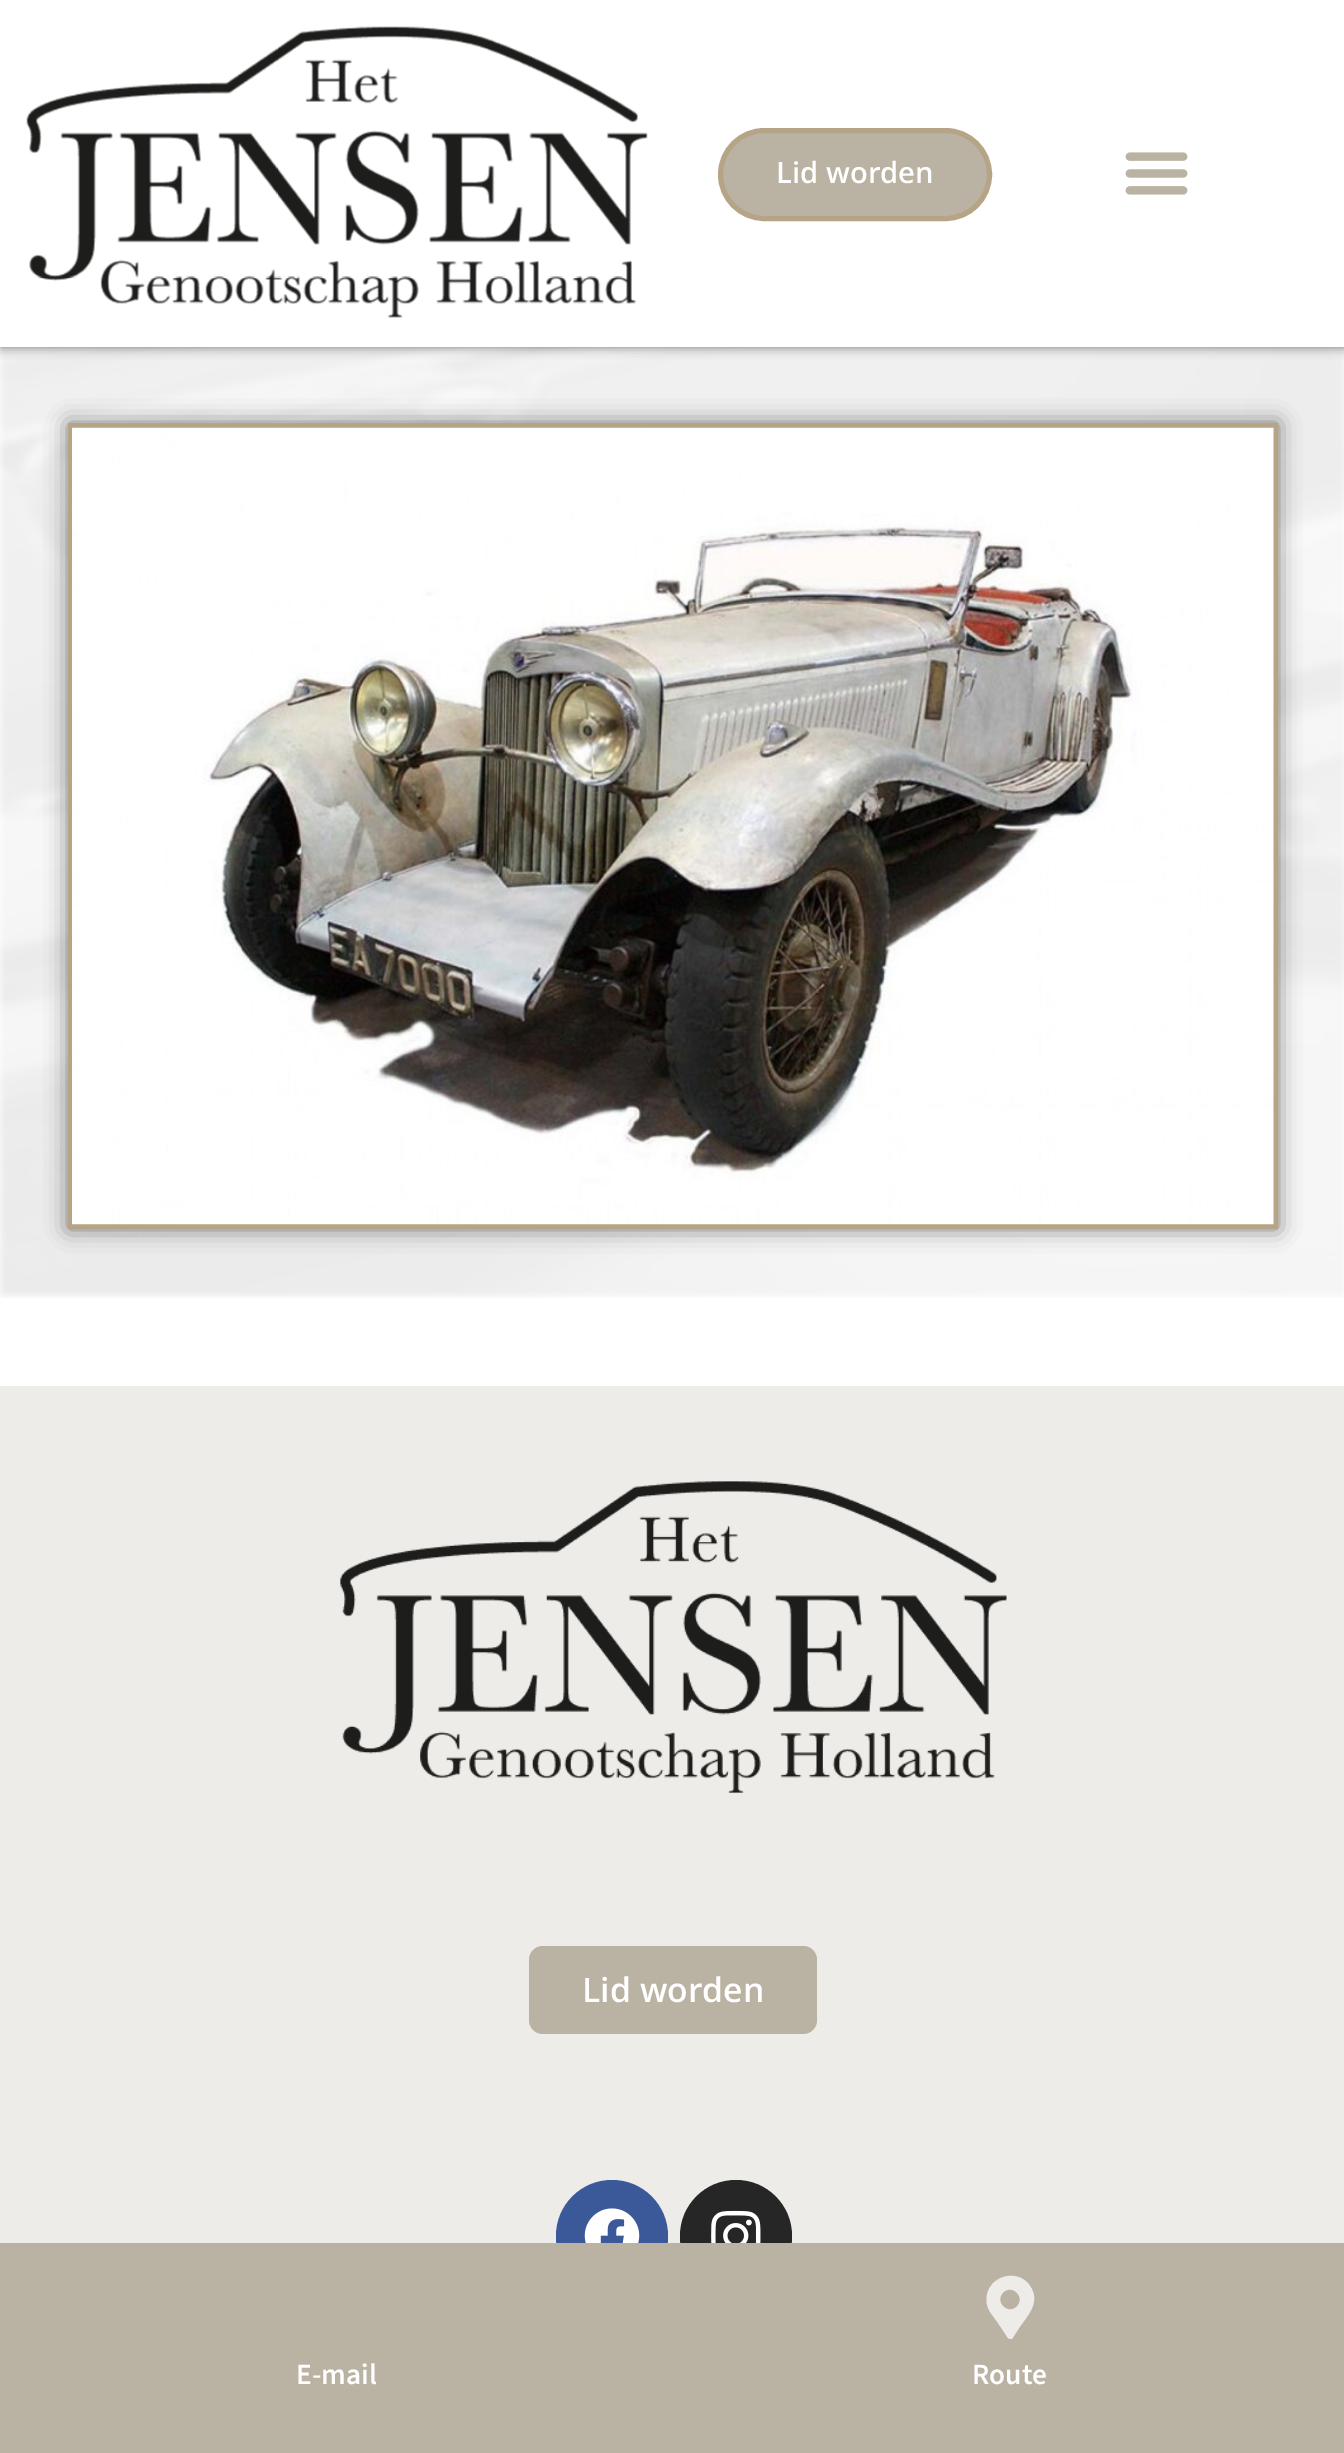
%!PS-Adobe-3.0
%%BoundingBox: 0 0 1344 2453
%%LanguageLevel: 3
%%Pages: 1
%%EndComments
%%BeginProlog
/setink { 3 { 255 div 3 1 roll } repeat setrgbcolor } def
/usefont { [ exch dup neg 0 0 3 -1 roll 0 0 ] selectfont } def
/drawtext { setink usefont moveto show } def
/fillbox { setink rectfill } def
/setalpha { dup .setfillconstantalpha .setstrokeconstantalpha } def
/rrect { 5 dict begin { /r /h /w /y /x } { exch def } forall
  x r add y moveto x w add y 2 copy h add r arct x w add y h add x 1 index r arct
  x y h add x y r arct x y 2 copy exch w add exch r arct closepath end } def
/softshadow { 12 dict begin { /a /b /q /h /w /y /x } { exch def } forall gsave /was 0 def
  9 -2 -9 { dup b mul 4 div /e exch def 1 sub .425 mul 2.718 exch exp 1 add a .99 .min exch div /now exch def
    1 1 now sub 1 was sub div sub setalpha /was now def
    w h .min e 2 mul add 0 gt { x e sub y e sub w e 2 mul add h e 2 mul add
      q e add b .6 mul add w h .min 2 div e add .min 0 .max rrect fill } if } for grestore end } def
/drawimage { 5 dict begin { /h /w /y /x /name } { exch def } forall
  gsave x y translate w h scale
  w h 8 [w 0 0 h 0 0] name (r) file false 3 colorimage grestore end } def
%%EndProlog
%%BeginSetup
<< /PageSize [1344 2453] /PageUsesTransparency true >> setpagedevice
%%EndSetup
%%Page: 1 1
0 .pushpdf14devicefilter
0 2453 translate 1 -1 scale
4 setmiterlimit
0 0 1344 2453 255 255 255 fillbox
(assets/img3.rgb) 0 347 1344 951 drawimage
0 0 0 setink
0 0 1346 347 0 5.5 0.5 softshadow
0 0 1344 347 255 255 255 fillbox
(assets/img1.rgb) 26 26 622 292 drawimage
186 178 163 setink
720.5 130.5 269 88 44 rrect gsave fill grestore
181 164 133 setink
5 setlinewidth
stroke
(Lid worden) 776 183 /OpenSans-SemiBold 29.25 255 255 255 drawtext
(assets/img2.rgb) 1125 152 63 43 drawimage
0 0 0 setink
68 423 1210 806 0 11 0.5 softshadow
181 164 133 setink
70.5 425.5 1205 801 rectstroke
(assets/img4.rgb) 72 427 1202 798 drawimage
0 1386 1344 857 238 236 232 fillbox
(assets/img5.rgb) 340 1481 667 312 drawimage
186 178 163 setink
529 1946 288 88 14 rrect fill
(Lid worden) 582 2002 /OpenSans-SemiBold 33.75 255 255 255 drawtext
59 89 152 setink
556 2180 112 113 56 rrect fill
(assets/img6.rgb) 584 2208 56 35 drawimage
38 38 38 setink
680 2180 112 113 56 rrect fill
(assets/img7.rgb) 711 2210 50 33 drawimage
0 2243 1344 210 186 178 163 fillbox
(E-mail) 296 2384 /SourceSans3-SemiBold 29.25 255 255 255 drawtext
238 236 232 setink
1008 2338 moveto 998 2323 lineto 994 2317 988 2311 987 2304 curveto 982 2279 1016 2265 1030 2286 curveto 1041 2302 1028 2315 1019 2328 curveto 1012 2339 lineto 1010 2339 1009 2339 1008 2338 curveto closepath 1003 2306 moveto 1012 2316 1026 2302 1017 2293 curveto 1008 2283 994 2297 1003 2306 curveto closepath fill
(Route) 972 2384 /SourceSans3-SemiBold 29.25 255 255 255 drawtext
.poppdf14devicefilter showpage
%%EOF
